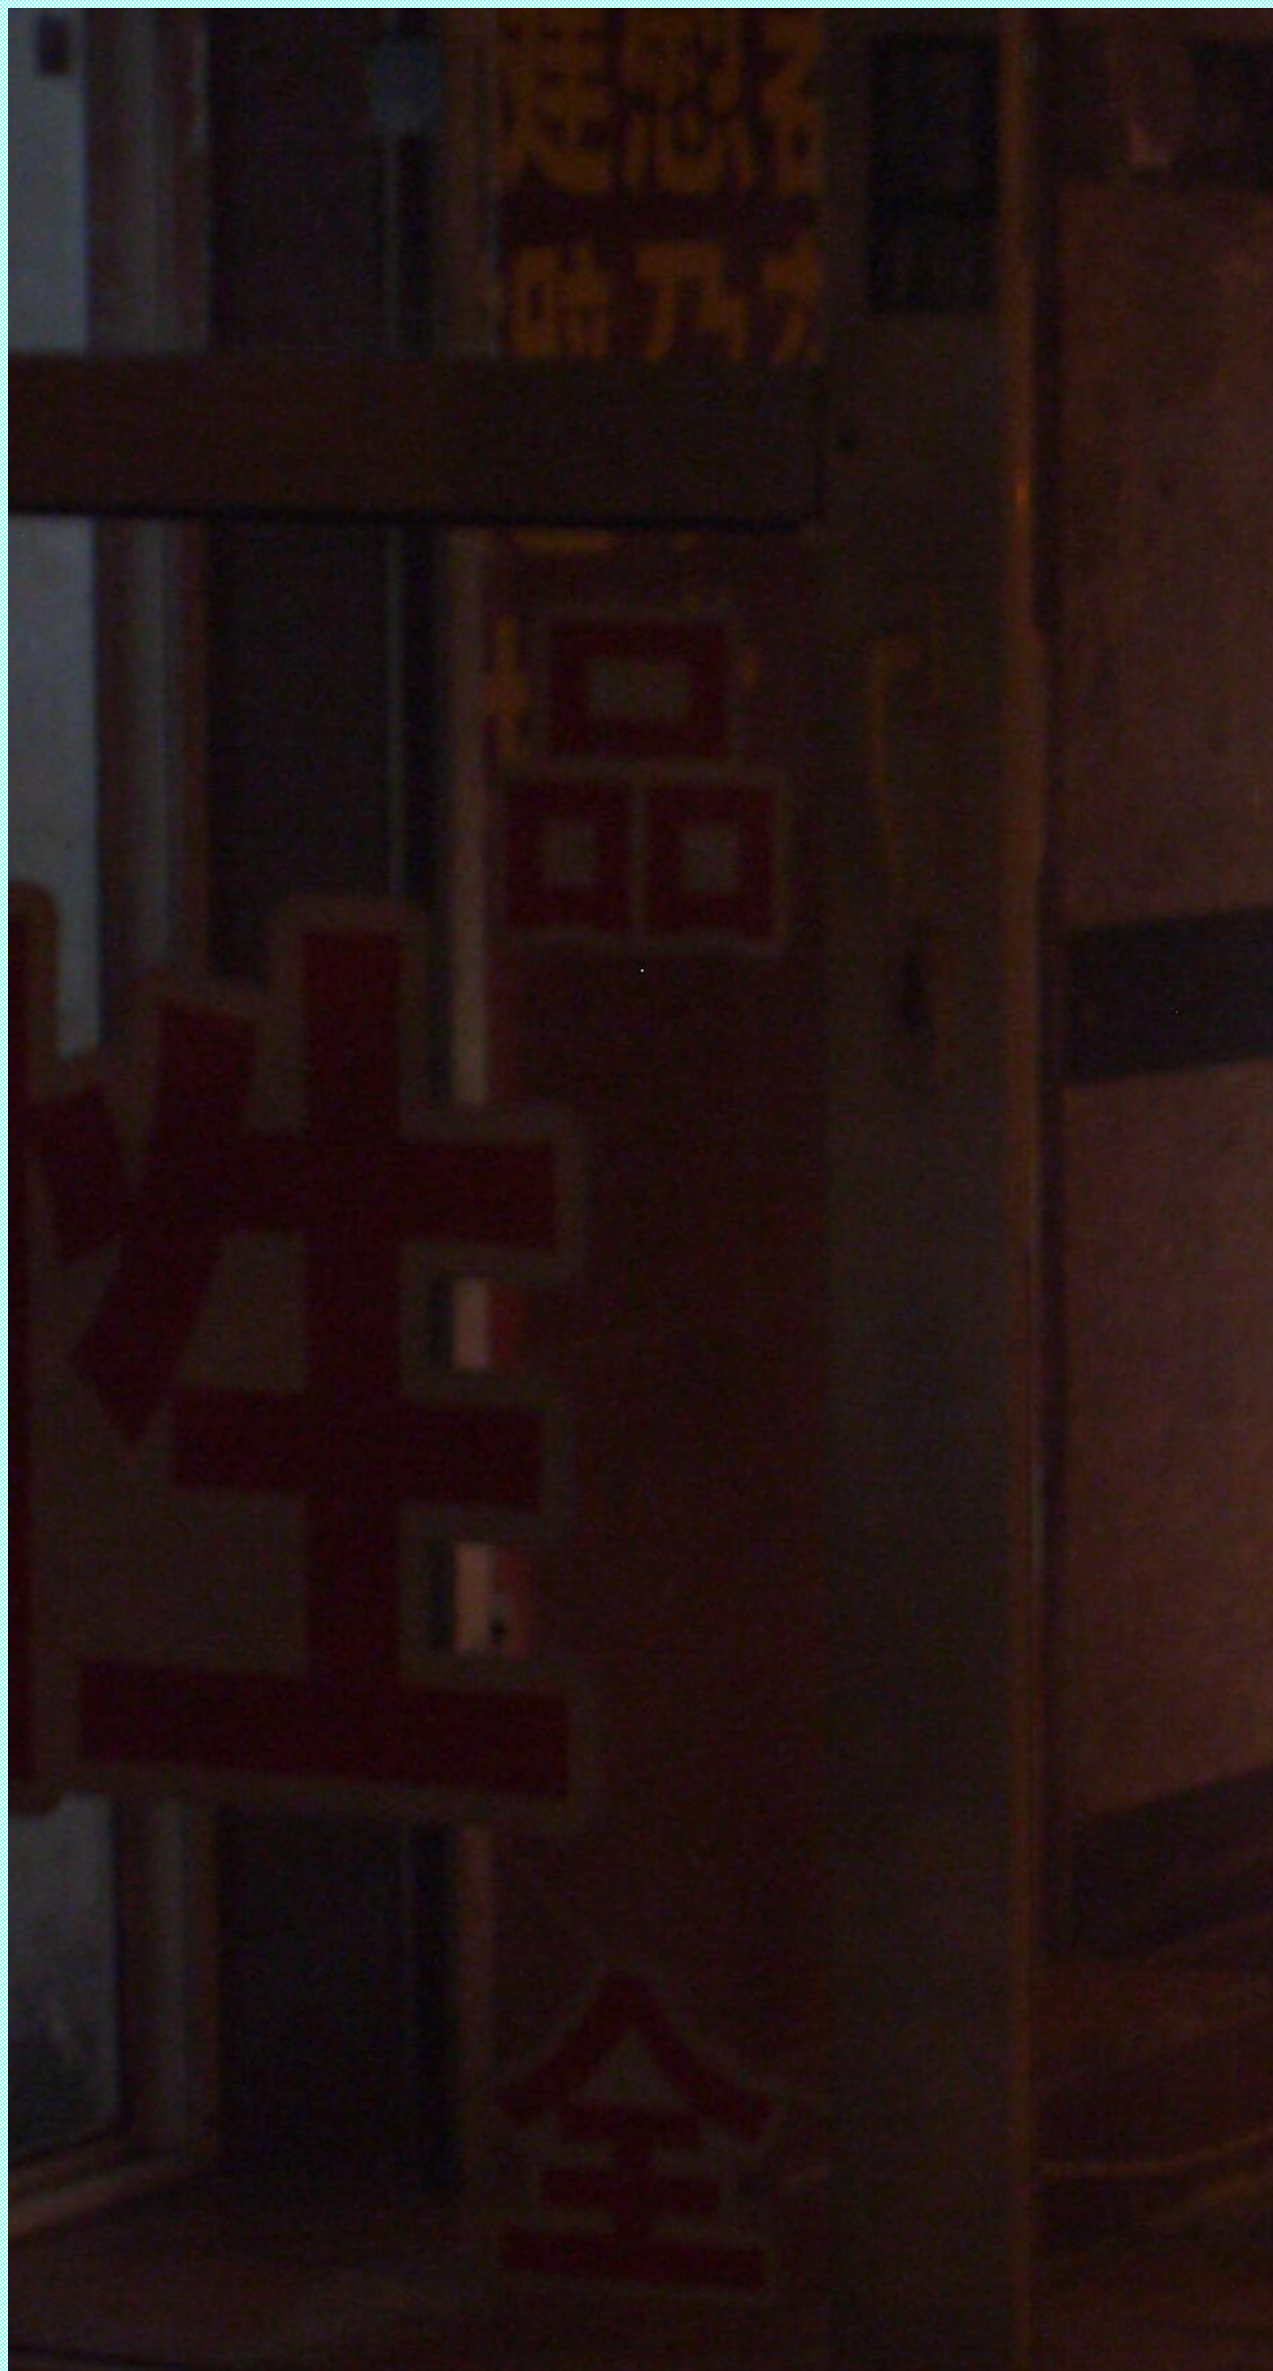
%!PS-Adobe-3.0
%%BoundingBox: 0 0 1273 2371
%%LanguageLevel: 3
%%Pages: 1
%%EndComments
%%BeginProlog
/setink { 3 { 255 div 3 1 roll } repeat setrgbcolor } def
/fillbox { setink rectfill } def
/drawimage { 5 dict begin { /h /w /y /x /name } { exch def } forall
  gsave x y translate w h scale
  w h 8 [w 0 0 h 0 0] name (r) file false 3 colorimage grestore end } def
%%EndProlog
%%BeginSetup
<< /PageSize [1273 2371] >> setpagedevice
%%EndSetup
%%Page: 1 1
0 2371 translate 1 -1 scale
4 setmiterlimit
0 0 1273 2371 255 255 255 fillbox
(assets/img1.rgb) 0 0 1273 2371 drawimage
(assets/img2.rgb) 8 8 1265 2363 drawimage
showpage
%%EOF
